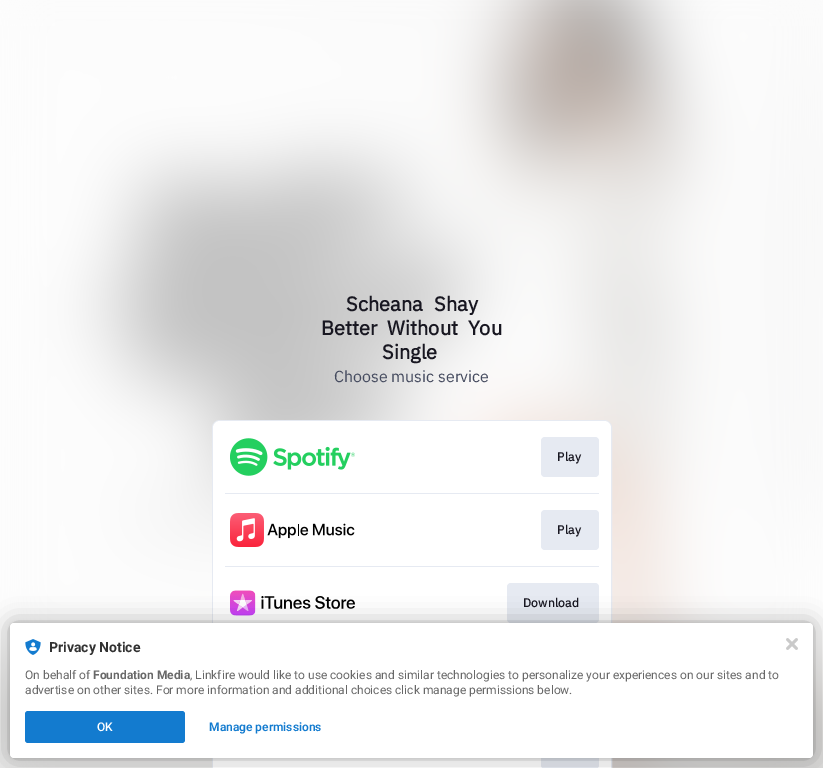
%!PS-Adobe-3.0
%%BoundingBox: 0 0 823 768
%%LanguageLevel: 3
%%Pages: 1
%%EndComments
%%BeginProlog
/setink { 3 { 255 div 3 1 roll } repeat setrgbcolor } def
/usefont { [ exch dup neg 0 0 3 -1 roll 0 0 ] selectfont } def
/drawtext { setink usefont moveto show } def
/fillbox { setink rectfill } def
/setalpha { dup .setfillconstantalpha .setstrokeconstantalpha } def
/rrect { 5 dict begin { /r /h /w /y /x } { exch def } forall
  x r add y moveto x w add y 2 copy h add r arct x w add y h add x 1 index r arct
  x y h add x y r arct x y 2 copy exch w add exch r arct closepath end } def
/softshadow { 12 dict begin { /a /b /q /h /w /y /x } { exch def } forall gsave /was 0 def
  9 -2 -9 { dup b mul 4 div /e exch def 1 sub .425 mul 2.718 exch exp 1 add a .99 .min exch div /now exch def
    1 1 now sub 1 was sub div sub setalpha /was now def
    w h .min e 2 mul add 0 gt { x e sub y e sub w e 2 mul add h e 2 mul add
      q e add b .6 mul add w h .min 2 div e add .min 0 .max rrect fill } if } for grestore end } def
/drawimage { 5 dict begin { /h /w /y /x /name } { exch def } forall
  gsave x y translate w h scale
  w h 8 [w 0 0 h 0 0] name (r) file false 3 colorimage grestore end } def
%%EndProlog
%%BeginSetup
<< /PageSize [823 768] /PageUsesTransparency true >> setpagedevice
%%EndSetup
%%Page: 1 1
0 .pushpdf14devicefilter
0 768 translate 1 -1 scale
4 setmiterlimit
0 0 823 768 255 255 255 fillbox
(assets/img1.rgb) 0 0 823 768 drawimage
/IBMPlexSans-Bold 20 usefont
24 23 33 setink
346 311 moveto 7 0 32 (Scheana Shay) widthshow
321 335 moveto 5 0 32 (Better Without You) widthshow
(Single) 382 359 /IBMPlexSans-Bold 20 24 23 33 drawtext
(Choose music service) 334 382 /IBMPlexSans-Regular 16 69 75 95 drawtext
230 234 242 setink
212.5 420.5 399 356 7.5 rrect stroke
255 255 255 setink
213 421 398 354 7 rrect fill
(assets/img2.rgb) 230 438 125 38 drawimage
230 234 242 setink
541 437 58 40 4 rrect fill
/IBMPlexSans-Bold 12 usefont
24 23 33 setink
557 461 moveto 0.25 0 (Play) ashow
225 493 374 1 230 234 242 fillbox
(assets/img3.rgb) 230 513 125 34 drawimage
541 510 58 40 4 rrect fill
24 23 33 setink
557 534 moveto 0.25 0 (Play) ashow
225 566 374 1 230 234 242 fillbox
(assets/img4.rgb) 230 590 125 26 drawimage
507 583 92 40 4 rrect fill
24 23 33 setink
523 607 moveto 0.25 0 (Download) ashow
230 234 242 setink
541 729 58 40 4 rrect fill
0 0 0 setink
10 623 803 135 4 2 0.12 softshadow
10 623 803 135 4 12 0.3 softshadow
255 255 255 setink
10 623 803 135 4 rrect fill
(assets/img5.rgb) 25 639 16 16 drawimage
(Privacy Notice) 49 652 /Roboto-Bold 14 50 50 50 drawtext
(On behalf of) 25 679 /Roboto-Regular 12 104 104 104 drawtext
(Foundation Media) 93 679 /Roboto-Bold 12 104 104 104 drawtext
(, Linkfire would like to use cookies and similar technologies to personalize your experiences on our sites and to) 190 679 /Roboto-Regular 12 104 104 104 drawtext
(advertise on other sites. For more information and additional choices click manage permissions below.) 25 694 /Roboto-Regular 12 104 104 104 drawtext
19 123 207 setink
25 711 160 32 3 rrect fill
(OK) 97 731 /Roboto-Medium 12 255 255 255 drawtext
(Manage permissions) 209 731 /Roboto-SemiBold 12 19 123 207 drawtext
(assets/img6.rgb) 786 638 12 12 drawimage
.poppdf14devicefilter showpage
%%EOF
